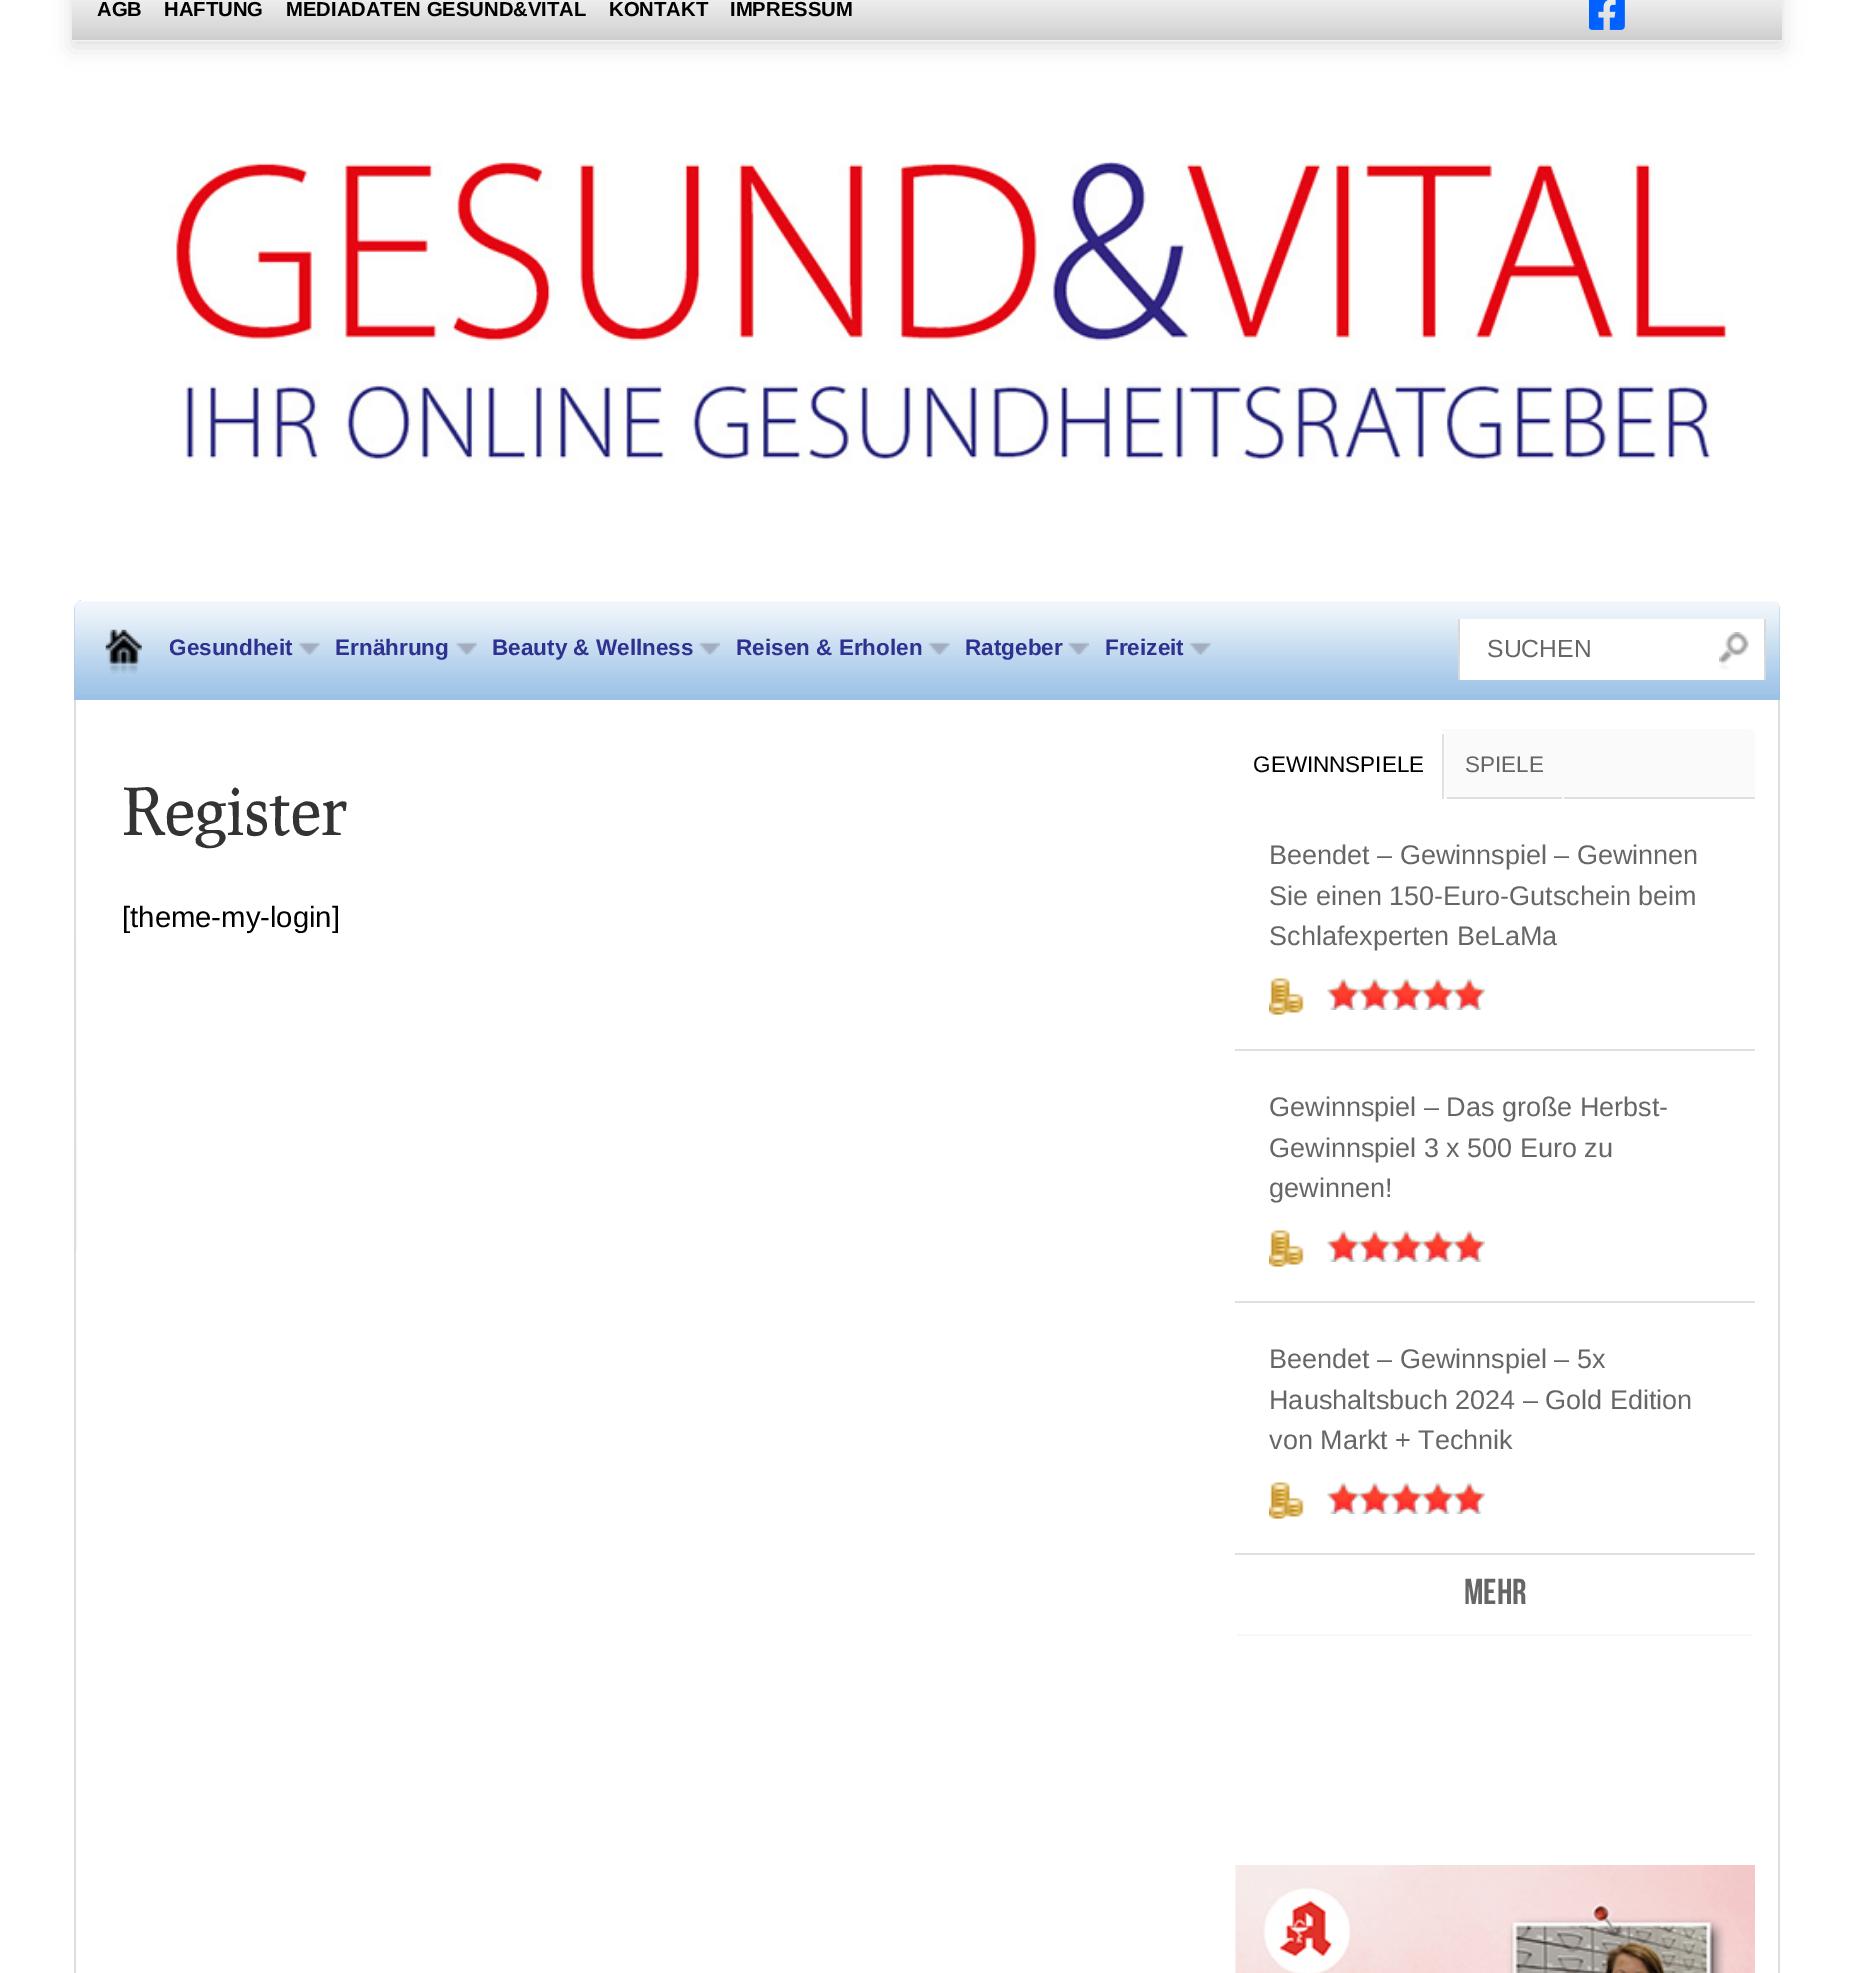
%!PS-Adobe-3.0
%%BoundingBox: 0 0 1854 1973
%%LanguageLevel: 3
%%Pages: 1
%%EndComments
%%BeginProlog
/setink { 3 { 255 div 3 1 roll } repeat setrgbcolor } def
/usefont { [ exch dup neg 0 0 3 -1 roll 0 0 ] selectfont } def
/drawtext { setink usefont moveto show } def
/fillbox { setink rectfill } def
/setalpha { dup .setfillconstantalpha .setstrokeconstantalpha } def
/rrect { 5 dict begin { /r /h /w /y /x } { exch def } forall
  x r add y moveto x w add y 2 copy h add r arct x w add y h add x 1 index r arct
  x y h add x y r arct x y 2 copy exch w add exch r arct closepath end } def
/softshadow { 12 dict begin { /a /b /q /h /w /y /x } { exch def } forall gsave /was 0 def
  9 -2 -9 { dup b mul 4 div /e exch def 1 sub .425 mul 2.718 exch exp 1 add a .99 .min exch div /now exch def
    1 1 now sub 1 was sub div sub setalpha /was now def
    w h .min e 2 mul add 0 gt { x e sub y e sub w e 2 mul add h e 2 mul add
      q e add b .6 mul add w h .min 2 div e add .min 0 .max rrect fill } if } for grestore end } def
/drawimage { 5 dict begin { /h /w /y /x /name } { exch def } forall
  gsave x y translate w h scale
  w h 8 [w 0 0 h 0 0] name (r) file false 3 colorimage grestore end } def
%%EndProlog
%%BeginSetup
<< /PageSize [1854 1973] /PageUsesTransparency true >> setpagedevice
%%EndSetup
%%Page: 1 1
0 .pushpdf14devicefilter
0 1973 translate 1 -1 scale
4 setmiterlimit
0 0 1854 1973 255 255 255 fillbox
(assets/img1.rgb) 72 0 1710 41 drawimage
gsave
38 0 moveto 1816 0 lineto 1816 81 lineto 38 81 lineto closepath 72 -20 moveto 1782 -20 lineto 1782 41 lineto 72 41 lineto closepath eoclip newpath
221 221 221 setink
72 -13 1710 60 0 11 1 softshadow
grestore
(AGB) 97 16 /LiberationSans-Bold 20.25 0 0 0 drawtext
(HAFTUNG) 164 16 /LiberationSans-Bold 20.25 0 0 0 drawtext
(MEDIADATEN GESUND&VITAL) 286 16 /LiberationSans-Bold 20.25 0 0 0 drawtext
(KONTAKT) 609 16 /LiberationSans-Bold 20.25 0 0 0 drawtext
(IMPRESSUM) 730 16 /LiberationSans-Bold 20.25 0 0 0 drawtext
(assets/img2.rgb) 1589 0 36 30 drawimage
(assets/img3.rgb) 170 161 1557 303 drawimage
155 193 230 setink
85 599 moveto 1769 599 lineto 1775 599 1780 604 1780 610 curveto 1780 700 lineto 74 700 lineto 74 610 lineto 74 604 79 599 85 599 curveto closepath fill
(assets/img4.rgb) 74 600 1706 95 drawimage
81 599 1694 2 255 255 255 fillbox
(assets/img5.rgb) 105 629 37 45 drawimage
(Gesundheit) 169 655 /LiberationSans-Bold 22.5 47 49 145 drawtext
(assets/img6.rgb) 298 642 22 13 drawimage
(Ernährung) 335 655 /LiberationSans-Bold 22.5 47 49 145 drawtext
(assets/img7.rgb) 456 642 21 13 drawimage
(Beauty & Wellness) 492 655 /LiberationSans-Bold 22.5 47 49 145 drawtext
(assets/img7.rgb) 699 642 21 13 drawimage
(Reisen & Erholen) 736 655 /LiberationSans-Bold 22.5 47 49 145 drawtext
(assets/img8.rgb) 928 642 22 13 drawimage
(Ratgeber) 965 655 /LiberationSans-Bold 22.5 47 49 145 drawtext
(assets/img9.rgb) 1068 642 21 13 drawimage
(Freizeit) 1105 655 /LiberationSans-Bold 22.5 47 49 145 drawtext
(assets/img8.rgb) 1189 642 22 13 drawimage
1460 619 304 61 255 255 255 fillbox
1764 619 2 61 217 217 217 fillbox
1458 619 2 61 217 217 217 fillbox
(assets/img10.rgb) 1719 632 30 38 drawimage
(SUCHEN) 1487 657 /LiberationSans-Regular 24.75 102 102 102 drawtext
(assets/img11.rgb) 76 939 1 312 drawimage
1778 700 2 1273 221 221 221 fillbox
74 700 2 1273 221 221 221 fillbox
(Register) 122 835 /Prociono-Regular 64.5 51 51 51 drawtext
([theme-my-login]) 122 927 /LiberationSans-Regular 29.25 0 0 0 drawtext
250 250 250 setink
1242 729 moveto 1748 729 lineto 1752 729 1755 732 1755 736 curveto 1755 799 lineto 1235 799 lineto 1235 736 lineto 1235 732 1238 729 1242 729 curveto closepath fill
1447 797 308 2 223 223 223 fillbox
255 255 255 setink
1242 729 moveto 1438 729 lineto 1442 729 1445 732 1445 736 curveto 1445 799 lineto 1235 799 lineto 1235 736 lineto 1235 732 1238 729 1242 729 curveto closepath fill
1442 734 2 65 224 224 224 fillbox
(GEWINNSPIELE) 1253 772 /LiberationSans-Regular 22.5 0 0 0 drawtext
1562 797 2 2 250 250 250 fillbox
(SPIELE) 1465 772 /LiberationSans-Regular 22.5 102 102 102 drawtext
1235 1049 520 2 223 223 223 fillbox
(Beendet – Gewinnspiel – Gewinnen) 1269 864 /LiberationSans-Regular 27 102 102 102 drawtext
(Sie einen 150-Euro-Gutschein beim) 1269 905 /LiberationSans-Regular 27 102 102 102 drawtext
(Schlafexperten BeLaMa) 1269 945 /LiberationSans-Regular 27 102 102 102 drawtext
(assets/img12.rgb) 1269 978 35 37 drawimage
(assets/img13.rgb) 1327 978 32 32 drawimage
(assets/img14.rgb) 1359 978 32 32 drawimage
(assets/img15.rgb) 1390 978 32 32 drawimage
(assets/img14.rgb) 1422 978 32 32 drawimage
(assets/img15.rgb) 1453 978 32 32 drawimage
1235 1301 520 2 223 223 223 fillbox
(Gewinnspiel – Das große Herbst-) 1269 1116 /LiberationSans-Regular 27 102 102 102 drawtext
(Gewinnspiel 3 x 500 Euro zu) 1269 1157 /LiberationSans-Regular 27 102 102 102 drawtext
(gewinnen!) 1269 1197 /LiberationSans-Regular 27 102 102 102 drawtext
(assets/img12.rgb) 1269 1230 35 37 drawimage
(assets/img13.rgb) 1327 1230 32 32 drawimage
(assets/img14.rgb) 1359 1230 32 32 drawimage
(assets/img15.rgb) 1390 1230 32 32 drawimage
(assets/img14.rgb) 1422 1230 32 32 drawimage
(assets/img15.rgb) 1453 1230 32 32 drawimage
1235 1553 520 2 223 223 223 fillbox
(Beendet – Gewinnspiel – 5x) 1269 1368 /LiberationSans-Regular 27 102 102 102 drawtext
(Haushaltsbuch 2024 – Gold Edition) 1269 1409 /LiberationSans-Regular 27 102 102 102 drawtext
(von Markt + Technik) 1269 1449 /LiberationSans-Regular 27 102 102 102 drawtext
(assets/img16.rgb) 1269 1482 35 37 drawimage
(assets/img17.rgb) 1327 1482 32 32 drawimage
(assets/img18.rgb) 1359 1482 32 32 drawimage
(assets/img19.rgb) 1390 1482 32 32 drawimage
(assets/img18.rgb) 1422 1482 32 32 drawimage
(assets/img19.rgb) 1453 1482 32 32 drawimage
(MEHR) 1464 1604 /BebasNeue-Regular 36 102 102 102 drawtext
gsave
1235 729 520 907 7 rrect clip newpath
1235 1634 520 2 247 247 247 fillbox
grestore
(assets/img20.rgb) 1235 1865 520 108 drawimage
.poppdf14devicefilter showpage
%%EOF
